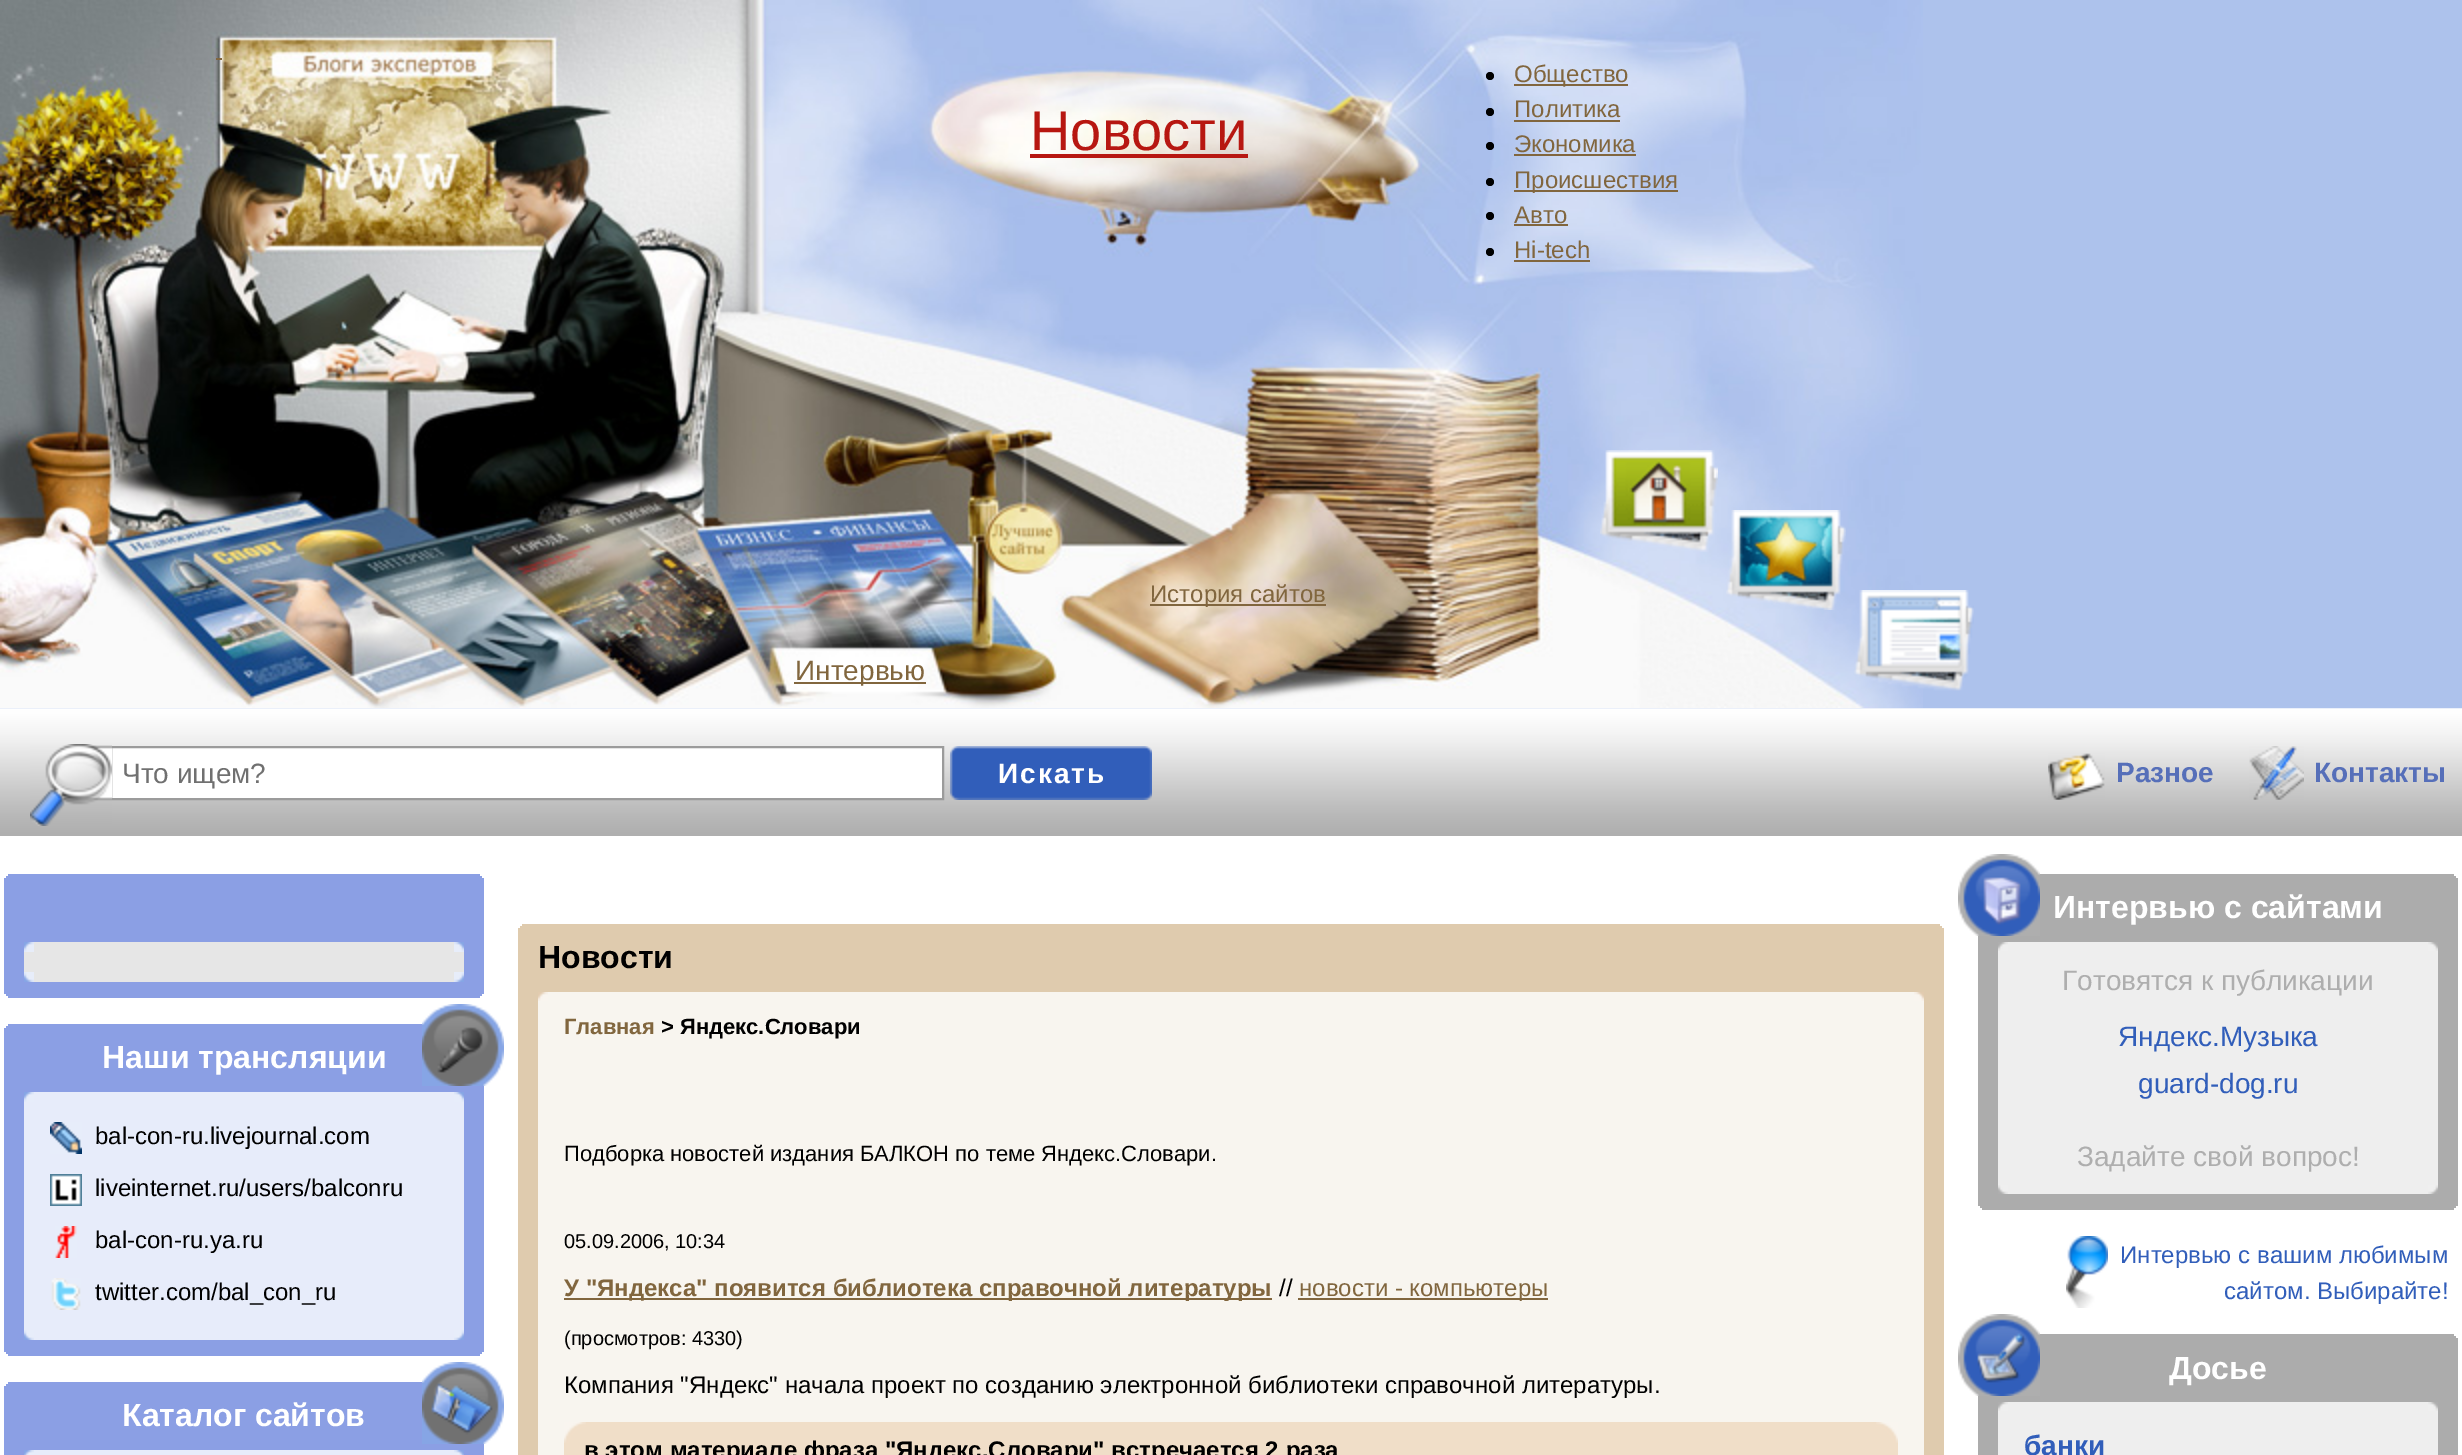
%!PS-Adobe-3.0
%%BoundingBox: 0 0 2462 1455
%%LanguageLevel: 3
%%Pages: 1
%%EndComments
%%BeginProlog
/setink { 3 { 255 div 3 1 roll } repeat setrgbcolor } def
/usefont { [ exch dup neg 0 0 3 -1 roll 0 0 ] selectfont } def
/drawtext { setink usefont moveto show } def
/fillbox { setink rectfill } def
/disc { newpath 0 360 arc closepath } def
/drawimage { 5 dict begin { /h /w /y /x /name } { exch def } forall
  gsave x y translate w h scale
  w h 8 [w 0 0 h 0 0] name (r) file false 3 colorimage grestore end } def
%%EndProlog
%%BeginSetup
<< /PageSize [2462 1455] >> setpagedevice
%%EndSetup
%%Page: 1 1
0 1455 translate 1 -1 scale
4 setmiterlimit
0 0 2462 1455 255 255 255 fillbox
(assets/img1.rgb) 0 708 2462 128 drawimage
1923 0 539 708 173 194 236 fillbox
(assets/img2.rgb) 0 0 1923 708 drawimage
216 58 6 2 129 102 62 fillbox
(Новости) 1030 150 /LiberationSans-Regular 56 183 23 17 drawtext
1030 154 218 4 183 23 17 fillbox
0 0 0 setink
1490 76 4 disc fill
1514 84 114 2 129 102 62 fillbox
(Общество) 1514 82 /LiberationSans-Regular 24 129 102 62 drawtext
0 0 0 setink
1490 112 4 disc fill
(Политика) 1514 117 /LiberationSans-Regular 24 129 102 62 drawtext
1514 120 106 2 129 102 62 fillbox
0 0 0 setink
1490 146 4 disc fill
(Экономика) 1514 152 /LiberationSans-Regular 24 129 102 62 drawtext
1514 154 122 2 129 102 62 fillbox
0 0 0 setink
1490 182 4 disc fill
1514 190 164 2 129 102 62 fillbox
(Происшествия) 1514 188 /LiberationSans-Regular 24 129 102 62 drawtext
0 0 0 setink
1490 216 4 disc fill
(Авто) 1514 223 /LiberationSans-Regular 24 129 102 62 drawtext
1514 224 54 2 129 102 62 fillbox
0 0 0 setink
1490 252 4 disc fill
(Hi-tech) 1514 258 /LiberationSans-Regular 24 129 102 62 drawtext
1514 260 76 2 129 102 62 fillbox
794 682 132 2 129 102 62 fillbox
(Интервью) 795 680 /LiberationSans-Regular 28 129 102 62 drawtext
1150 604 176 2 129 102 62 fillbox
(История сайтов) 1150 602 /LiberationSans-Regular 24 129 102 62 drawtext
(assets/img3.rgb) 1600 450 118 102 drawimage
(assets/img4.rgb) 1726 510 120 100 drawimage
(assets/img5.rgb) 1854 590 120 101 drawimage
255 255 255 setink
111 747 moveto 943 747 lineto 943 799 lineto 111 799 lineto closepath gsave fill grestore
155 155 155 setink
2 setlinewidth
stroke
(assets/img6.rgb) 30 744 82 82 drawimage
(Что ищем?) 122 783 /LiberationSans-Regular 28 112 112 112 drawtext
(assets/img7.rgb) 950 746 202 54 drawimage
/LiberationSans-Bold 28 usefont
255 255 255 setink
998 783 moveto 2 0 (Искать) ashow
(assets/img8.rgb) 2048 753 57 47 drawimage
(Разное) 2116 782 /LiberationSans-Bold 28 86 111 185 drawtext
(assets/img9.rgb) 2249 746 55 54 drawimage
(Контакты) 2314 782 /LiberationSans-Bold 28 86 111 185 drawtext
4 874 480 124 139 159 228 fillbox
480 874 4 2 255 255 255 fillbox
4 874 4 2 255 255 255 fillbox
482 876 2 2 255 255 255 fillbox
4 876 2 2 255 255 255 fillbox
24 942 440 40 230 230 230 fillbox
(assets/img10.rgb) 24 942 10 10 drawimage
(assets/img11.rgb) 454 942 10 10 drawimage
(assets/img12.rgb) 24 972 10 10 drawimage
(assets/img13.rgb) 454 972 10 10 drawimage
482 994 2 2 255 255 255 fillbox
4 994 2 2 255 255 255 fillbox
480 996 4 2 255 255 255 fillbox
4 996 4 2 255 255 255 fillbox
4 1024 480 332 139 159 228 fillbox
4 1024 4 2 255 255 255 fillbox
(assets/img14.rgb) 422 1004 82 82 drawimage
4 1026 2 2 255 255 255 fillbox
(Наши трансляции) 102 1068 /LiberationSans-Bold 32 255 255 255 drawtext
24 1092 440 248 231 236 250 fillbox
(assets/img10.rgb) 24 1092 10 10 drawimage
(assets/img11.rgb) 454 1092 10 10 drawimage
(assets/img15.rgb) 50 1122 32 32 drawimage
(bal-con-ru.livejournal.com) 95 1144 /LiberationSans-Regular 24 0 0 0 drawtext
(assets/img16.rgb) 50 1174 32 32 drawimage
(liveinternet.ru/users/balconru) 95 1196 /LiberationSans-Regular 24 0 0 0 drawtext
(assets/img17.rgb) 55 1226 22 32 drawimage
(bal-con-ru.ya.ru) 95 1248 /LiberationSans-Regular 24 0 0 0 drawtext
(assets/img18.rgb) 51 1278 30 32 drawimage
(twitter.com/bal_con_ru) 95 1300 /LiberationSans-Regular 24 0 0 0 drawtext
(assets/img12.rgb) 24 1330 10 10 drawimage
(assets/img13.rgb) 454 1330 10 10 drawimage
482 1352 2 2 255 255 255 fillbox
4 1352 2 2 255 255 255 fillbox
480 1354 4 2 255 255 255 fillbox
4 1354 4 2 255 255 255 fillbox
4 1382 480 73 139 159 228 fillbox
4 1382 4 2 255 255 255 fillbox
(assets/img19.rgb) 422 1362 82 82 drawimage
4 1384 2 2 255 255 255 fillbox
(Каталог сайтов) 122 1426 /LiberationSans-Bold 32 255 255 255 drawtext
34 1450 420 5 231 236 250 fillbox
(assets/img20.rgb) 24 1450 10 5 drawimage
(assets/img21.rgb) 454 1450 10 5 drawimage
518 924 1426 531 223 203 174 fillbox
1940 924 4 2 255 255 255 fillbox
518 924 4 2 255 255 255 fillbox
1942 926 2 2 255 255 255 fillbox
518 926 2 2 255 255 255 fillbox
(Новости) 538 968 /LiberationSans-Bold 32 0 0 0 drawtext
538 992 1386 463 248 245 239 fillbox
(assets/img22.rgb) 538 992 10 9 drawimage
(assets/img23.rgb) 1914 992 10 9 drawimage
(Главная) 564 1034 /LiberationSans-Bold 22 129 102 62 drawtext
(> Яндекс.Словари) 661 1034 /LiberationSans-Bold 22 0 0 0 drawtext
(Подборка новостей издания БАЛКОН по теме Яндекс.Словари.) 564 1161 /LiberationSans-Regular 22 0 0 0 drawtext
(05.09.2006, 10:34) 564 1248 /LiberationSans-Regular 20 0 0 0 drawtext
564 1298 708 2 129 102 62 fillbox
(У "Яндекса" появится библиотека справочной литературы) 564 1296 /LiberationSans-Bold 24 129 102 62 drawtext
(//) 1279 1296 /LiberationSans-Regular 24 0 0 0 drawtext
1298 1298 250 2 129 102 62 fillbox
(новости - компьютеры) 1299 1296 /LiberationSans-Regular 24 129 102 62 drawtext
(\(просмотров: 4330\)) 564 1345 /LiberationSans-Regular 20 0 0 0 drawtext
(Компания "Яндекс" начала проект по созданию электронной библиотеки справочной литературы.) 564 1393 /LiberationSans-Regular 24 0 0 0 drawtext
564 1422 1334 33 240 222 200 fillbox
(в этом материале фраза "Яндекс.Словари" встречается 2 раза) 584 1458 /LiberationSans-Bold 24 0 0 0 drawtext
(assets/img24.rgb) 564 1422 22 21 drawimage
(assets/img25.rgb) 1876 1422 22 21 drawimage
1978 874 480 336 172 172 172 fillbox
(assets/img26.rgb) 1958 854 82 82 drawimage
2454 874 4 2 255 255 255 fillbox
2456 876 2 2 255 255 255 fillbox
(Интервью с сайтами) 2053 918 /LiberationSans-Bold 32 255 255 255 drawtext
1998 942 440 252 238 238 238 fillbox
(assets/img27.rgb) 1998 942 10 9 drawimage
(assets/img28.rgb) 2428 942 10 9 drawimage
(Готовятся к публикации) 2062 990 /LiberationSans-Regular 28 174 174 174 drawtext
(Яндекс.Музыка) 2118 1046 /LiberationSans-Regular 28 49 94 186 drawtext
(guard-dog.ru) 2138 1093 /LiberationSans-Regular 28 49 94 186 drawtext
(Задайте свой вопрос!) 2077 1166 /LiberationSans-Regular 28 174 174 174 drawtext
(assets/img29.rgb) 1998 1185 10 9 drawimage
(assets/img30.rgb) 2428 1185 10 9 drawimage
2456 1206 2 2 255 255 255 fillbox
1978 1206 2 2 255 255 255 fillbox
2454 1208 4 2 255 255 255 fillbox
1978 1208 4 2 255 255 255 fillbox
(assets/img31.rgb) 2066 1236 42 72 drawimage
(Интервью с вашим любимым) 2120 1263 /LiberationSans-Regular 24 49 94 186 drawtext
(сайтом. Выбирайте!) 2224 1299 /LiberationSans-Regular 24 49 94 186 drawtext
1978 1334 480 121 172 172 172 fillbox
(assets/img32.rgb) 1958 1314 82 82 drawimage
2454 1334 4 2 255 255 255 fillbox
2456 1336 2 2 255 255 255 fillbox
(Досье) 2169 1379 /LiberationSans-Bold 32 255 255 255 drawtext
1998 1402 440 53 238 238 238 fillbox
(assets/img27.rgb) 1998 1402 10 9 drawimage
(assets/img28.rgb) 2428 1402 10 9 drawimage
(банки) 2024 1455 /LiberationSans-Bold 28 49 94 186 drawtext
showpage
%%EOF
